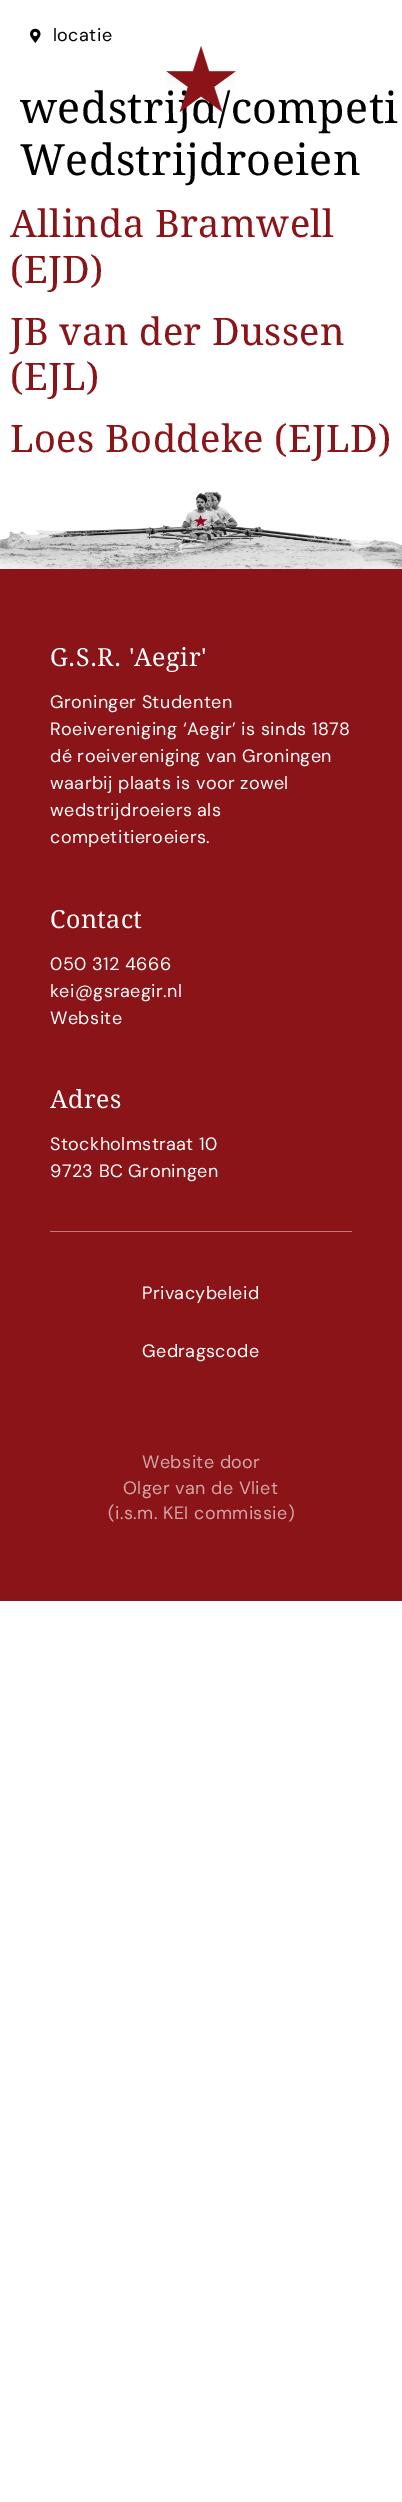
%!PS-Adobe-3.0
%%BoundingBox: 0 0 402 2502
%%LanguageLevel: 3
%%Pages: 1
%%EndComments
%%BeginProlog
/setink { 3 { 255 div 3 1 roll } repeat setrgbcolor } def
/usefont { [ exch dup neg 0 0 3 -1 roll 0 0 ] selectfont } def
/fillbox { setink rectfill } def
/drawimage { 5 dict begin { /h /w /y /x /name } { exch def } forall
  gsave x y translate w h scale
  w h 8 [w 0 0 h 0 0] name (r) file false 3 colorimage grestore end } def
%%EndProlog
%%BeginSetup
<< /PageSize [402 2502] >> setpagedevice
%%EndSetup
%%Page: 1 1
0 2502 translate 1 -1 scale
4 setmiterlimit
0 0 402 2502 255 255 255 fillbox
(assets/img1.rgb) 30 28 11 15 drawimage
/DMSans-Regular 18 usefont
0 0 0 setink
53 41 moveto 0.4 0 (locatie) ashow
/DroidSerif-Regular 43 usefont
20 123 moveto 0.4 0 (wedstrijd/competi) ashow
(assets/img2.rgb) 166 46 70 67 drawimage
20 175 moveto 0.4 0 (Wedstrijdroeien) ashow
/DroidSerif-Regular 38 usefont
138 20 24 setink
10 237 moveto 0.4 0 (Allinda Bramwell) ashow
10 283 moveto 0.4 0 (\(EJD\)) ashow
10 345 moveto 0.4 0 (JB van der Dussen) ashow
10 390 moveto 0.4 0 (\(EJL\)) ashow
10 452 moveto 0.4 0 (Loes Boddeke \(EJLD\)) ashow
(assets/img3.rgb) 0 491 402 78 drawimage
0 569 402 1032 138 20 24 fillbox
/DroidSerif-Regular 25 usefont
255 255 255 setink
50 666 moveto 0.4 0 (G.S.R. 'Aegir') ashow
/DMSans-Regular 18 usefont
50 708 moveto 0.4 0 (Groninger Studenten) ashow
50 735 moveto 0.4 0 (Roeivereniging ‘Aegir’ is sinds 1878) ashow
50 762 moveto 0.4 0 (dé roeivereniging van Groningen) ashow
50 789 moveto 0.4 0 (waarbij plaats is voor zowel) ashow
50 816 moveto 0.4 0 (wedstrijdroeiers als) ashow
50 843 moveto 0.4 0 (competitieroeiers.) ashow
/DroidSerif-Regular 25 usefont
50 928 moveto 0.4 0 (Contact) ashow
/DMSans-Regular 18 usefont
50 970 moveto 0.4 0 (050 312 4666) ashow
50 997 moveto 0.4 0 (kei@gsraegir.nl) ashow
50 1024 moveto 0.4 0 (Website) ashow
/DroidSerif-Regular 25 usefont
50 1108 moveto 0.4 0 (Adres) ashow
/DMSans-Regular 18 usefont
50 1150 moveto 0.4 0 (Stockholmstraat 10) ashow
50 1177 moveto 0.4 0 (9723 BC Groningen) ashow
50 1231 302 1 189 123 126 fillbox
255 255 255 setink
142 1299 moveto 0.4 0 (Privacybeleid) ashow
142 1357 moveto 0.4 0 (Gedragscode) ashow
211 166 167 setink
142 1468 moveto 0.4 0 (Website door) ashow
123 1494 moveto 0.4 0 (Olger van de Vliet) ashow
108 1519 moveto 0.4 0 (\(i.s.m. KEI commissie\)) ashow
showpage
%%EOF
